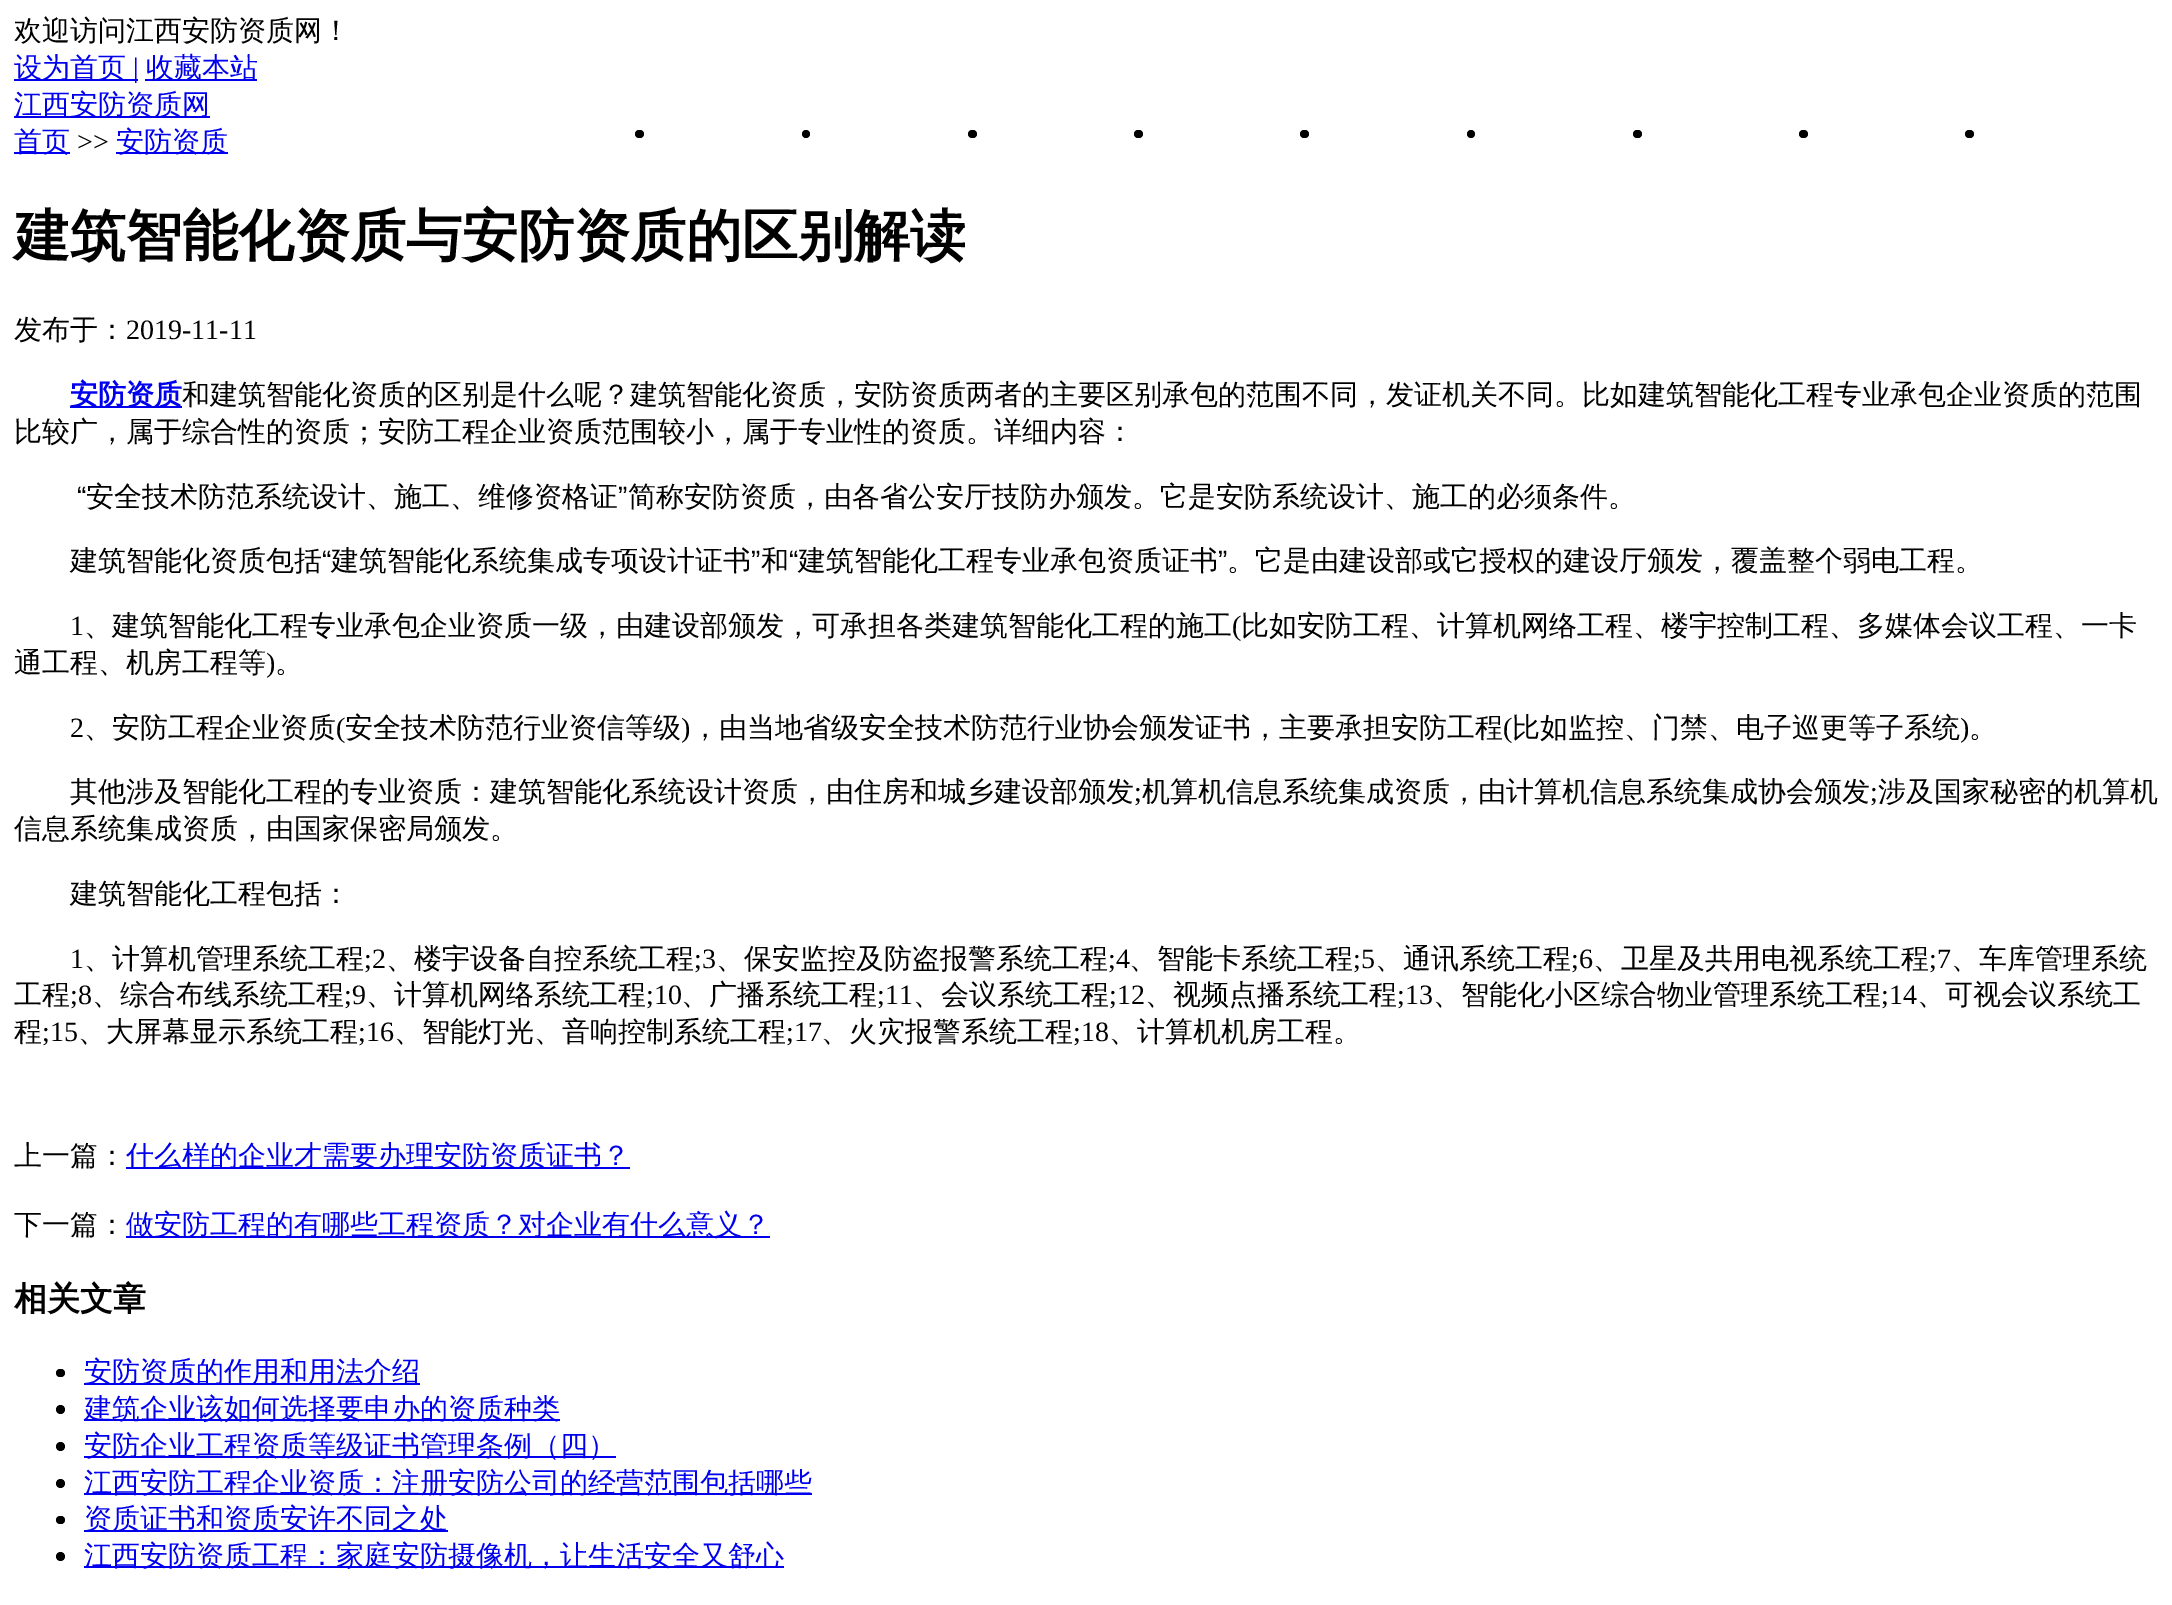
%!PS-Adobe-3.0
%%BoundingBox: 0 0 2172 1605
%%LanguageLevel: 3
%%Pages: 1
%%EndComments
%%BeginProlog
/setink { 3 { 255 div 3 1 roll } repeat setrgbcolor } def
/usefont { [ exch dup neg 0 0 3 -1 roll 0 0 ] selectfont } def
/drawtext { setink usefont moveto show } def
/fillbox { setink rectfill } def
/disc { newpath 0 360 arc closepath } def
/rrect { 5 dict begin { /r /h /w /y /x } { exch def } forall
  x r add y moveto x w add y 2 copy h add r arct x w add y h add x 1 index r arct
  x y h add x y r arct x y 2 copy exch w add exch r arct closepath end } def
%%EndProlog
%%BeginSetup
<< /PageSize [2172 1605] >> setpagedevice
%%EndSetup
%%Page: 1 1
0 1605 translate 1 -1 scale
4 setmiterlimit
0 0 2172 1605 255 255 255 fillbox
(欢迎访问江西安防资质网！) 14 40 /WenQuanYiZenHei-Medium 28 0 0 0 drawtext
14 79 124 2 0 0 238 fillbox
(设为首页) 14 77 /WenQuanYiZenHei-Medium 28 0 0 238 drawtext
(|) 133 77 /LiberationSerif-Regular 28 0 0 238 drawtext
145 79 112 2 0 0 238 fillbox
(收藏本站) 146 77 /WenQuanYiZenHei-Medium 28 0 0 238 drawtext
14 116 196 2 0 0 238 fillbox
(江西安防资质网) 14 114 /WenQuanYiZenHei-Medium 28 0 0 238 drawtext
0 0 0 setink
635 130 9 8 4 rrect fill
806 134 4 disc fill
968 130 9 8 4 rrect fill
1134 130 9 8 4 rrect fill
1300 130 9 8 4 rrect fill
1471 134 4 disc fill
1633 130 9 8 4 rrect fill
1799 130 9 8 4 rrect fill
1965 130 9 8 4 rrect fill
14 152 56 2 0 0 238 fillbox
(首页) 14 151 /WenQuanYiZenHei-Medium 28 0 0 238 drawtext
(>>) 77 151 /LiberationSerif-Regular 28 0 0 0 drawtext
116 152 112 2 0 0 238 fillbox
(安防资质) 116 151 /WenQuanYiZenHei-Medium 28 0 0 238 drawtext
(建筑智能化资质与安防资质的区别解读) 14 255 /WenQuanYiZenHei-Bold 56 0 0 0 drawtext
(发布于：) 14 339 /WenQuanYiZenHei-Medium 28 0 0 0 drawtext
(2019-11-11) 126 339 /LiberationSerif-Regular 28 0 0 0 drawtext
70 406 112 2 0 0 238 fillbox
(安防资质) 70 404 /WenQuanYiZenHei-Bold 28 0 0 238 drawtext
(和建筑智能化资质的区别是什么呢？建筑智能化资质，安防资质两者的主要区别承包的范围不同，发证机关不同。比如建筑智能化工程专业承包企业资质的范围) 182 404 /WenQuanYiZenHei-Medium 28 0 0 0 drawtext
(比较广，属于综合性的资质；安防工程企业资质范围较小，属于专业性的资质。详细内容：) 14 441 /WenQuanYiZenHei-Medium 28 0 0 0 drawtext
(“) 77 506 /LiberationSans-Regular 28 0 0 0 drawtext
(安全技术防范系统设计、施工、维修资格证) 86 506 /WenQuanYiZenHei-Medium 28 0 0 0 drawtext
(”) 618 506 /LiberationSans-Regular 28 0 0 0 drawtext
(简称安防资质，由各省公安厅技防办颁发。它是安防系统设计、施工的必须条件。) 628 506 /WenQuanYiZenHei-Medium 28 0 0 0 drawtext
(建筑智能化资质包括) 70 570 /WenQuanYiZenHei-Medium 28 0 0 0 drawtext
(“) 322 570 /LiberationSans-Regular 28 0 0 0 drawtext
(建筑智能化系统集成专项设计证书) 331 570 /WenQuanYiZenHei-Medium 28 0 0 0 drawtext
(”) 751 570 /LiberationSans-Regular 28 0 0 0 drawtext
(和) 761 570 /WenQuanYiZenHei-Medium 28 0 0 0 drawtext
(“) 789 570 /LiberationSans-Regular 28 0 0 0 drawtext
(建筑智能化工程专业承包资质证书) 798 570 /WenQuanYiZenHei-Medium 28 0 0 0 drawtext
(”) 1218 570 /LiberationSans-Regular 28 0 0 0 drawtext
(。它是由建设部或它授权的建设厅颁发，覆盖整个弱电工程。) 1227 570 /WenQuanYiZenHei-Medium 28 0 0 0 drawtext
(1) 70 635 /LiberationSerif-Regular 28 0 0 0 drawtext
(、建筑智能化工程专业承包企业资质一级，由建设部颁发，可承担各类建筑智能化工程的施工) 84 635 /WenQuanYiZenHei-Medium 28 0 0 0 drawtext
(\() 1232 635 /LiberationSerif-Regular 28 0 0 0 drawtext
(比如安防工程、计算机网络工程、楼宇控制工程、多媒体会议工程、一卡) 1241 635 /WenQuanYiZenHei-Medium 28 0 0 0 drawtext
(通工程、机房工程等) 14 672 /WenQuanYiZenHei-Medium 28 0 0 0 drawtext
(\)) 266 672 /LiberationSerif-Regular 28 0 0 0 drawtext
(。) 275 672 /WenQuanYiZenHei-Medium 28 0 0 0 drawtext
(2) 70 737 /LiberationSerif-Regular 28 0 0 0 drawtext
(、安防工程企业资质) 84 737 /WenQuanYiZenHei-Medium 28 0 0 0 drawtext
(\() 336 737 /LiberationSerif-Regular 28 0 0 0 drawtext
(安全技术防范行业资信等级) 345 737 /WenQuanYiZenHei-Medium 28 0 0 0 drawtext
(\)) 681 737 /LiberationSerif-Regular 28 0 0 0 drawtext
(，由当地省级安全技术防范行业协会颁发证书，主要承担安防工程) 691 737 /WenQuanYiZenHei-Medium 28 0 0 0 drawtext
(\() 1503 737 /LiberationSerif-Regular 28 0 0 0 drawtext
(比如监控、门禁、电子巡更等子系统) 1512 737 /WenQuanYiZenHei-Medium 28 0 0 0 drawtext
(\)) 1960 737 /LiberationSerif-Regular 28 0 0 0 drawtext
(。) 1969 737 /WenQuanYiZenHei-Medium 28 0 0 0 drawtext
(其他涉及智能化工程的专业资质：建筑智能化系统设计资质，由住房和城乡建设部颁发) 70 801 /WenQuanYiZenHei-Medium 28 0 0 0 drawtext
(;) 1134 801 /LiberationSerif-Regular 28 0 0 0 drawtext
(机算机信息系统集成资质，由计算机信息系统集成协会颁发) 1142 801 /WenQuanYiZenHei-Medium 28 0 0 0 drawtext
(;) 1870 801 /LiberationSerif-Regular 28 0 0 0 drawtext
(涉及国家秘密的机算机) 1878 801 /WenQuanYiZenHei-Medium 28 0 0 0 drawtext
(信息系统集成资质，由国家保密局颁发。) 14 838 /WenQuanYiZenHei-Medium 28 0 0 0 drawtext
(建筑智能化工程包括：) 70 903 /WenQuanYiZenHei-Medium 28 0 0 0 drawtext
(1) 70 968 /LiberationSerif-Regular 28 0 0 0 drawtext
(、计算机管理系统工程) 84 968 /WenQuanYiZenHei-Medium 28 0 0 0 drawtext
(;2) 364 968 /LiberationSerif-Regular 28 0 0 0 drawtext
(、楼宇设备自控系统工程) 386 968 /WenQuanYiZenHei-Medium 28 0 0 0 drawtext
(;3) 694 968 /LiberationSerif-Regular 28 0 0 0 drawtext
(、保安监控及防盗报警系统工程) 716 968 /WenQuanYiZenHei-Medium 28 0 0 0 drawtext
(;4) 1108 968 /LiberationSerif-Regular 28 0 0 0 drawtext
(、智能卡系统工程) 1129 968 /WenQuanYiZenHei-Medium 28 0 0 0 drawtext
(;5) 1353 968 /LiberationSerif-Regular 28 0 0 0 drawtext
(、通讯系统工程) 1375 968 /WenQuanYiZenHei-Medium 28 0 0 0 drawtext
(;6) 1571 968 /LiberationSerif-Regular 28 0 0 0 drawtext
(、卫星及共用电视系统工程) 1593 968 /WenQuanYiZenHei-Medium 28 0 0 0 drawtext
(;7) 1929 968 /LiberationSerif-Regular 28 0 0 0 drawtext
(、车库管理系统) 1951 968 /WenQuanYiZenHei-Medium 28 0 0 0 drawtext
(工程) 14 1004 /WenQuanYiZenHei-Medium 28 0 0 0 drawtext
(;8) 70 1004 /LiberationSerif-Regular 28 0 0 0 drawtext
(、综合布线系统工程) 92 1004 /WenQuanYiZenHei-Medium 28 0 0 0 drawtext
(;9) 344 1004 /LiberationSerif-Regular 28 0 0 0 drawtext
(、计算机网络系统工程) 366 1004 /WenQuanYiZenHei-Medium 28 0 0 0 drawtext
(;10) 646 1004 /LiberationSerif-Regular 28 0 0 0 drawtext
(、广播系统工程) 681 1004 /WenQuanYiZenHei-Medium 28 0 0 0 drawtext
(;11) 877 1004 /LiberationSerif-Regular 28 0 0 0 drawtext
(、会议系统工程) 913 1004 /WenQuanYiZenHei-Medium 28 0 0 0 drawtext
(;12) 1109 1004 /LiberationSerif-Regular 28 0 0 0 drawtext
(、视频点播系统工程) 1145 1004 /WenQuanYiZenHei-Medium 28 0 0 0 drawtext
(;13) 1397 1004 /LiberationSerif-Regular 28 0 0 0 drawtext
(、智能化小区综合物业管理系统工程) 1433 1004 /WenQuanYiZenHei-Medium 28 0 0 0 drawtext
(;14) 1881 1004 /LiberationSerif-Regular 28 0 0 0 drawtext
(、可视会议系统工) 1917 1004 /WenQuanYiZenHei-Medium 28 0 0 0 drawtext
(程) 14 1041 /WenQuanYiZenHei-Medium 28 0 0 0 drawtext
(;15) 42 1041 /LiberationSerif-Regular 28 0 0 0 drawtext
(、大屏幕显示系统工程) 78 1041 /WenQuanYiZenHei-Medium 28 0 0 0 drawtext
(;16) 358 1041 /LiberationSerif-Regular 28 0 0 0 drawtext
(、智能灯光、音响控制系统工程) 394 1041 /WenQuanYiZenHei-Medium 28 0 0 0 drawtext
(;17) 786 1041 /LiberationSerif-Regular 28 0 0 0 drawtext
(、火灾报警系统工程) 821 1041 /WenQuanYiZenHei-Medium 28 0 0 0 drawtext
(;18) 1073 1041 /LiberationSerif-Regular 28 0 0 0 drawtext
(、计算机机房工程。) 1109 1041 /WenQuanYiZenHei-Medium 28 0 0 0 drawtext
(上一篇：) 14 1165 /WenQuanYiZenHei-Medium 28 0 0 0 drawtext
126 1167 504 2 0 0 238 fillbox
(什么样的企业才需要办理安防资质证书？) 126 1165 /WenQuanYiZenHei-Medium 28 0 0 238 drawtext
(下一篇：) 14 1234 /WenQuanYiZenHei-Medium 28 0 0 0 drawtext
126 1236 644 2 0 0 238 fillbox
(做安防工程的有哪些工程资质？对企业有什么意义？) 126 1234 /WenQuanYiZenHei-Medium 28 0 0 238 drawtext
(相关文章) 14 1310 /WenQuanYiZenHei-Bold 33 0 0 0 drawtext
56 1369 9 8 4 rrect fill
84 1383 336 2 0 0 238 fillbox
(安防资质的作用和用法介绍) 84 1381 /WenQuanYiZenHei-Medium 28 0 0 238 drawtext
0 0 0 setink
60.5 1409.5 4.5 disc fill
84 1419 476 2 0 0 238 fillbox
(建筑企业该如何选择要申办的资质种类) 84 1418 /WenQuanYiZenHei-Medium 28 0 0 238 drawtext
0 0 0 setink
60.5 1446.5 4.5 disc fill
84 1456 532 2 0 0 238 fillbox
(安防企业工程资质等级证书管理条例（四）) 84 1455 /WenQuanYiZenHei-Medium 28 0 0 238 drawtext
0 0 0 setink
60.5 1483.5 4.5 disc fill
84 1493 728 2 0 0 238 fillbox
(江西安防工程企业资质：注册安防公司的经营范围包括哪些) 84 1492 /WenQuanYiZenHei-Medium 28 0 0 238 drawtext
0 0 0 setink
56 1516 9 8 4 rrect fill
84 1530 364 2 0 0 238 fillbox
(资质证书和资质安许不同之处) 84 1528 /WenQuanYiZenHei-Medium 28 0 0 238 drawtext
0 0 0 setink
60.5 1556.5 4.5 disc fill
84 1566 700 2 0 0 238 fillbox
(江西安防资质工程：家庭安防摄像机，让生活安全又舒心) 84 1565 /WenQuanYiZenHei-Medium 28 0 0 238 drawtext
showpage
%%EOF
